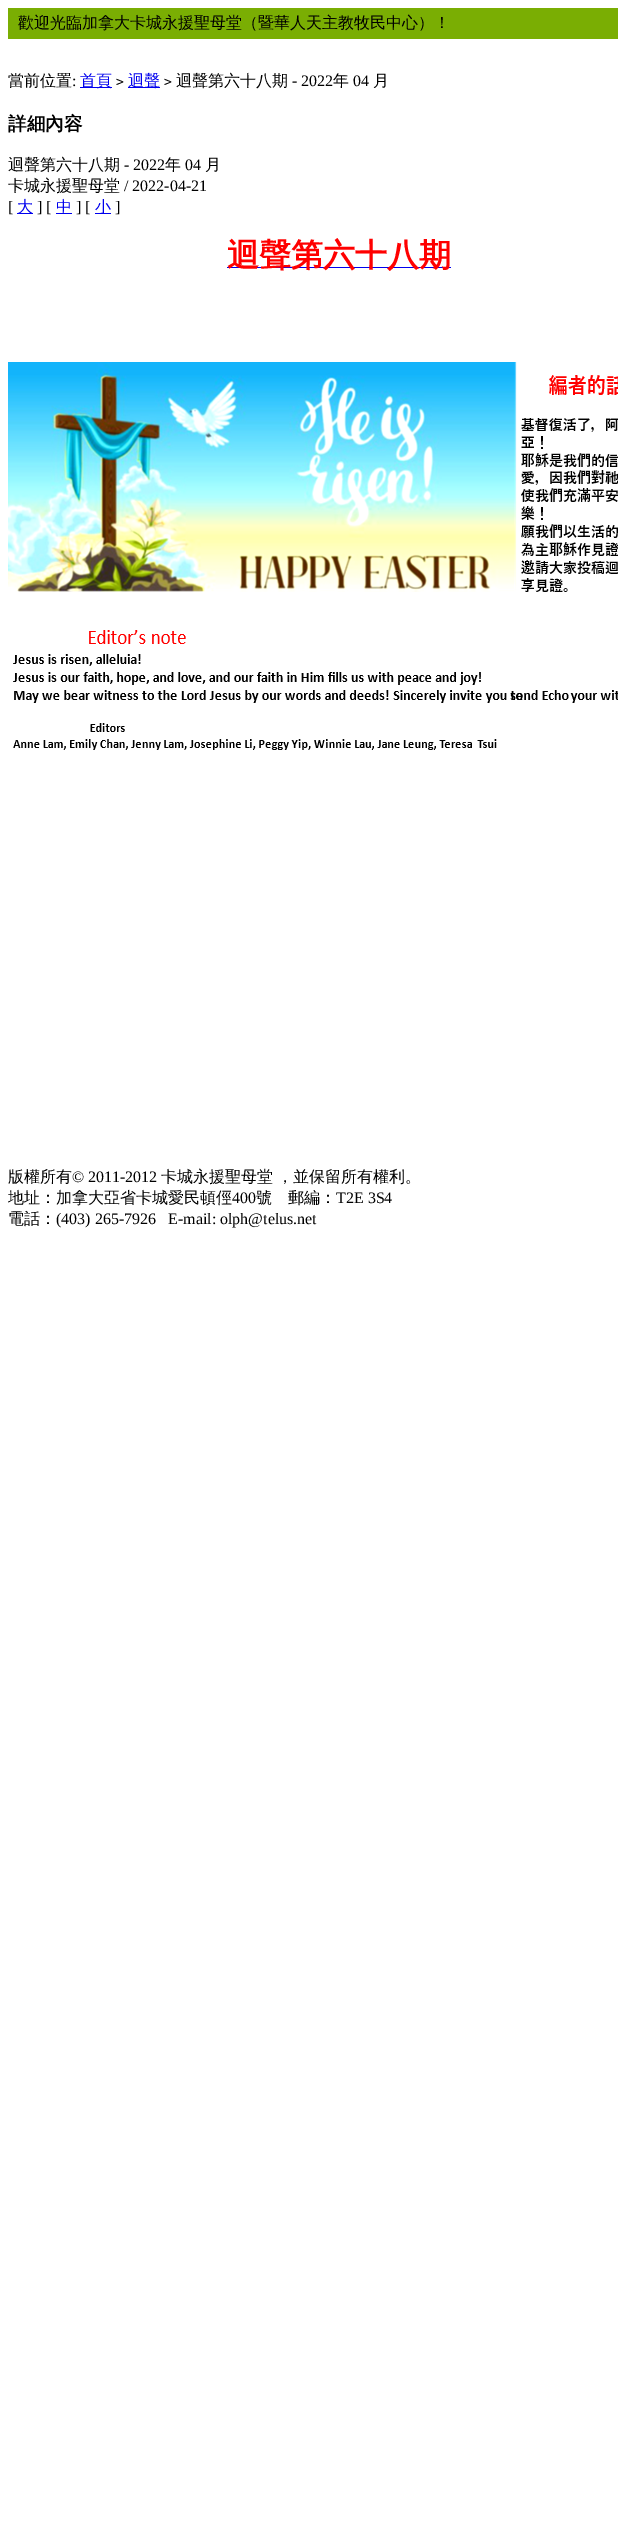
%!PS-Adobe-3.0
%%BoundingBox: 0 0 618 2534
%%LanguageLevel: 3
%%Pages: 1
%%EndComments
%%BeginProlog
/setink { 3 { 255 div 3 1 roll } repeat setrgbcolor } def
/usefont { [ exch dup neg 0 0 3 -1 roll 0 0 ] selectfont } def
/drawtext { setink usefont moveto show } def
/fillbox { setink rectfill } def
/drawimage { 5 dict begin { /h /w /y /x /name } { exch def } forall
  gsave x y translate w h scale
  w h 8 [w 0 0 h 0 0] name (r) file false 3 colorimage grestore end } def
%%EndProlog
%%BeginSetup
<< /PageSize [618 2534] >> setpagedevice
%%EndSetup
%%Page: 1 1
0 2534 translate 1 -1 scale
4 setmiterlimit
0 0 618 2534 255 255 255 fillbox
8 8 610 31 122 174 3 fillbox
(歡迎光臨加拿大卡城永援聖母堂（暨華人天主教牧民中心）！) 18 28 /WenQuanYiZenHei-Medium 16 0 0 0 drawtext
(當前位置) 8 86 /WenQuanYiZenHei-Medium 16 0 0 0 drawtext
(:) 72 86 /LiberationSerif-Regular 16 0 0 0 drawtext
80 87 32 1 0 0 238 fillbox
(首頁) 80 86 /WenQuanYiZenHei-Medium 16 0 0 238 drawtext
(>) 116 86 /DejaVuSansMono-Regular 13 0 0 0 drawtext
128 87 32 1 0 0 238 fillbox
(迴聲) 128 86 /WenQuanYiZenHei-Medium 16 0 0 238 drawtext
(>) 164 86 /DejaVuSansMono-Regular 13 0 0 0 drawtext
(迴聲第六十八期) 176 86 /WenQuanYiZenHei-Medium 16 0 0 0 drawtext
(- 2022) 292 86 /LiberationSerif-Regular 16 0 0 0 drawtext
(年) 333 86 /WenQuanYiZenHei-Medium 16 0 0 0 drawtext
(04) 353 86 /LiberationSerif-Regular 16 0 0 0 drawtext
(月) 373 86 /WenQuanYiZenHei-Medium 16 0 0 0 drawtext
(詳細內容) 8 130 /WenQuanYiZenHei-Bold 18.5 0 0 0 drawtext
(迴聲第六十八期) 8 170 /WenQuanYiZenHei-Medium 16 0 0 0 drawtext
(- 2022) 124 170 /LiberationSerif-Regular 16 0 0 0 drawtext
(年) 165 170 /WenQuanYiZenHei-Medium 16 0 0 0 drawtext
(04) 185 170 /LiberationSerif-Regular 16 0 0 0 drawtext
(月) 205 170 /WenQuanYiZenHei-Medium 16 0 0 0 drawtext
(卡城永援聖母堂) 8 191 /WenQuanYiZenHei-Medium 16 0 0 0 drawtext
(/ 2022-04-21) 124 191 /LiberationSerif-Regular 16 0 0 0 drawtext
([) 8 212 /LiberationSerif-Regular 16 0 0 0 drawtext
17 213 16 1 0 0 238 fillbox
(大) 17 212 /WenQuanYiZenHei-Medium 16 0 0 238 drawtext
(] [) 37 212 /LiberationSerif-Regular 16 0 0 0 drawtext
56 213 16 1 0 0 238 fillbox
(中) 56 212 /WenQuanYiZenHei-Medium 16 0 0 238 drawtext
(] [) 76 212 /LiberationSerif-Regular 16 0 0 0 drawtext
95 213 16 1 0 0 238 fillbox
(小) 95 212 /WenQuanYiZenHei-Medium 16 0 0 238 drawtext
(]) 115 212 /LiberationSerif-Regular 16 0 0 0 drawtext
227 267 224 1 0 0 238 fillbox
(迴聲第六十八期) 227 266 /WenQuanYiZenHei-Bold 32 255 0 0 drawtext
(assets/img1.rgb) 8 362 610 388 drawimage
(版權所有) 8 1182 /WenQuanYiZenHei-Medium 16 0 0 0 drawtext
(© 2011-2012) 72 1182 /LiberationSerif-Regular 16 0 0 0 drawtext
(卡城永援聖母堂) 161 1182 /WenQuanYiZenHei-Medium 16 0 0 0 drawtext
(，並保留所有權利。) 277 1182 /WenQuanYiZenHei-Medium 16 0 0 0 drawtext
(地址：加拿大亞省卡城愛民頓俓) 8 1203 /WenQuanYiZenHei-Medium 16 0 0 0 drawtext
(400) 232 1203 /LiberationSerif-Regular 16 0 0 0 drawtext
(號) 256 1203 /WenQuanYiZenHei-Medium 16 0 0 0 drawtext
(郵編：) 288 1203 /WenQuanYiZenHei-Medium 16 0 0 0 drawtext
(T2E 3S4) 336 1203 /LiberationSerif-Regular 16 0 0 0 drawtext
(電話：) 8 1224 /WenQuanYiZenHei-Medium 16 0 0 0 drawtext
(\(403\) 265-7926) 56 1224 /LiberationSerif-Regular 16 0 0 0 drawtext
(E-mail: olph@telus.net) 168 1224 /LiberationSerif-Regular 16 0 0 0 drawtext
showpage
%%EOF
